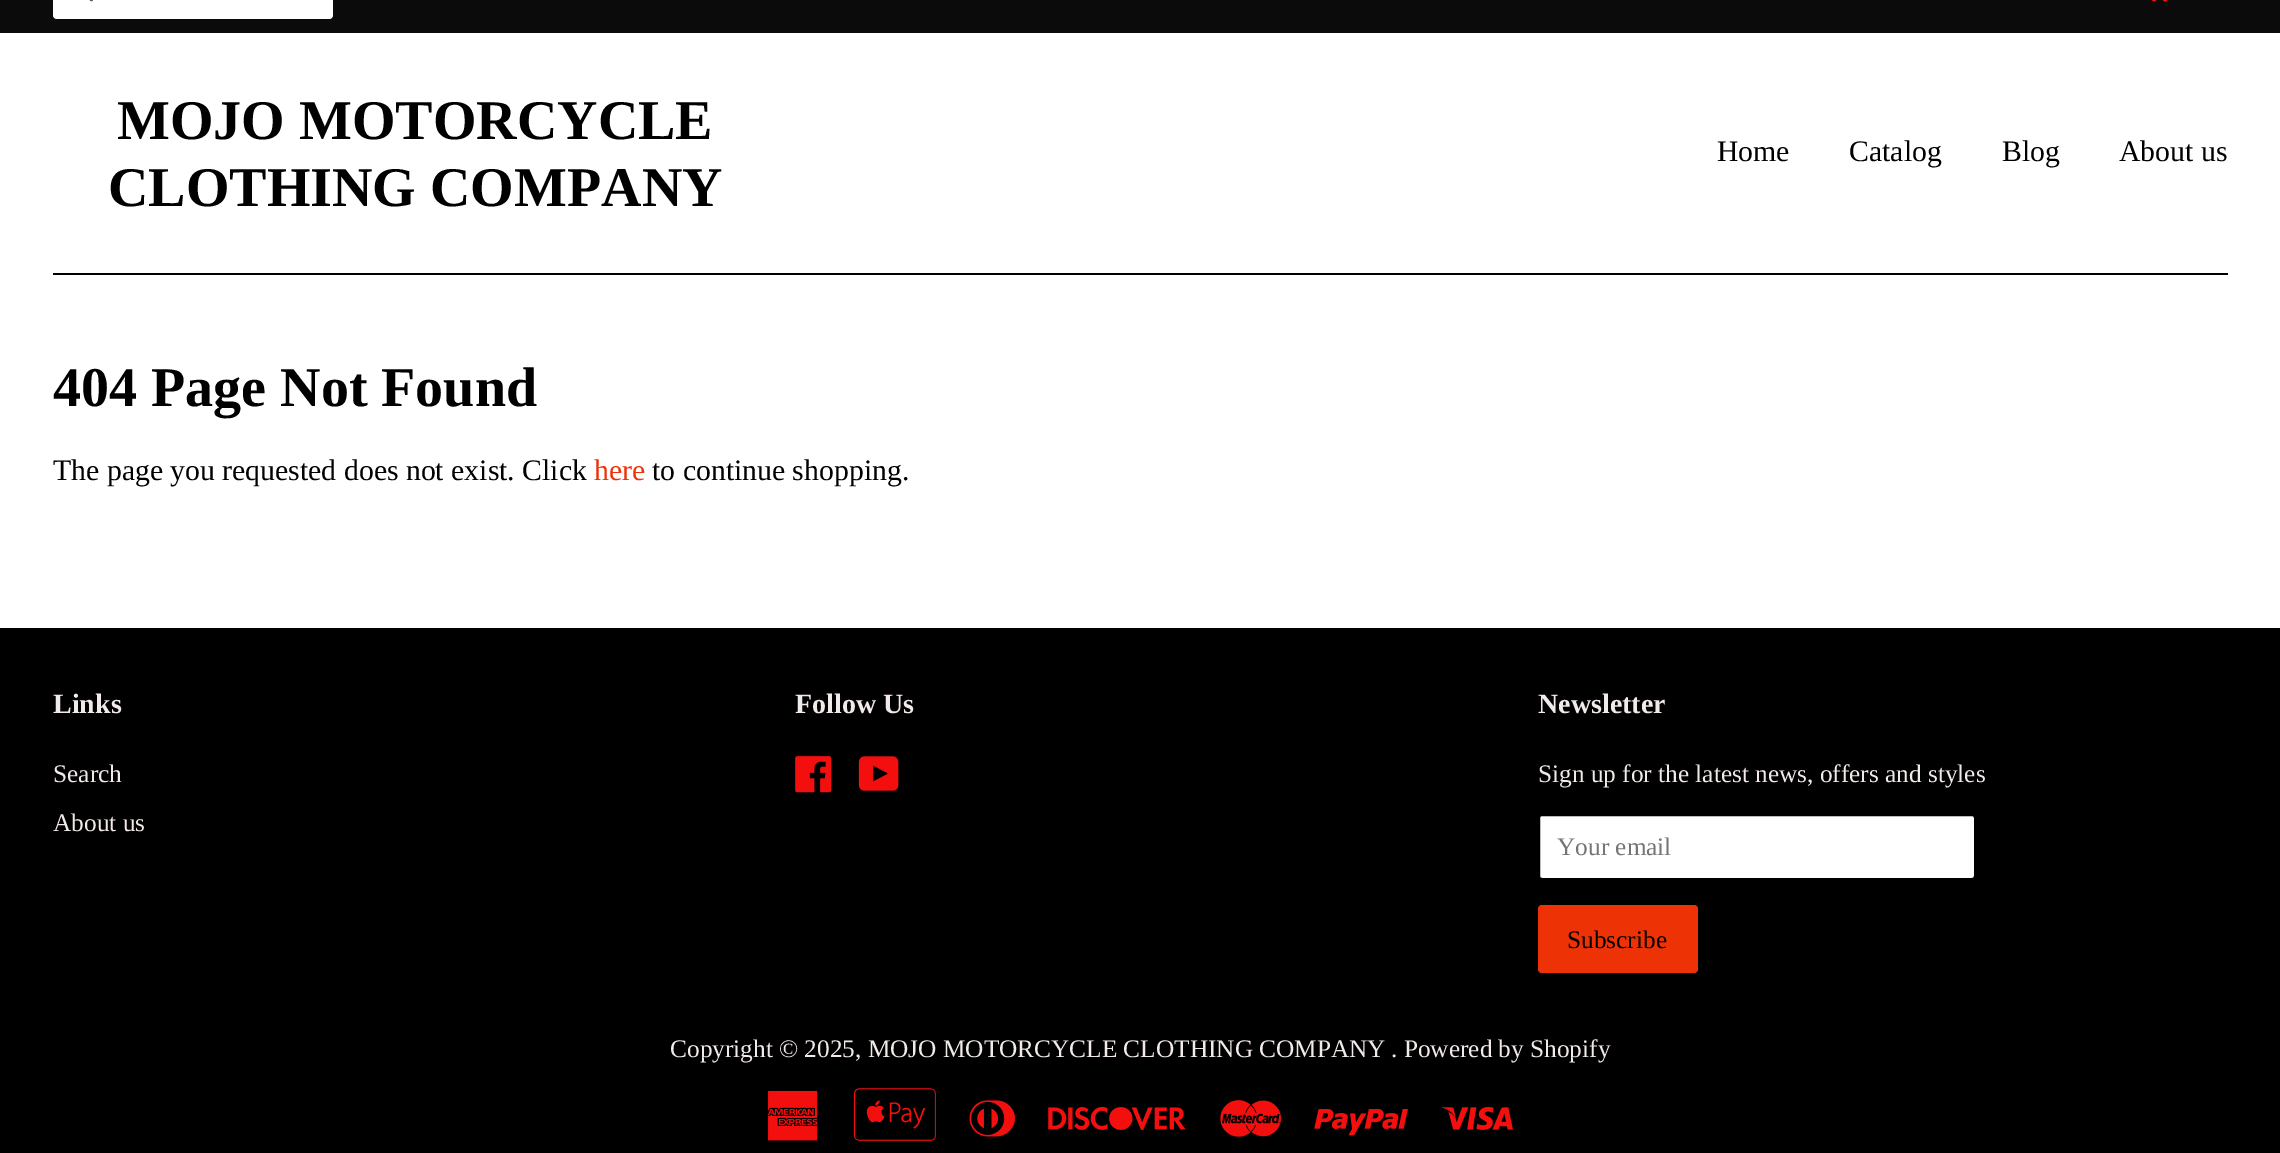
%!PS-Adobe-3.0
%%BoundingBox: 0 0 2280 1153
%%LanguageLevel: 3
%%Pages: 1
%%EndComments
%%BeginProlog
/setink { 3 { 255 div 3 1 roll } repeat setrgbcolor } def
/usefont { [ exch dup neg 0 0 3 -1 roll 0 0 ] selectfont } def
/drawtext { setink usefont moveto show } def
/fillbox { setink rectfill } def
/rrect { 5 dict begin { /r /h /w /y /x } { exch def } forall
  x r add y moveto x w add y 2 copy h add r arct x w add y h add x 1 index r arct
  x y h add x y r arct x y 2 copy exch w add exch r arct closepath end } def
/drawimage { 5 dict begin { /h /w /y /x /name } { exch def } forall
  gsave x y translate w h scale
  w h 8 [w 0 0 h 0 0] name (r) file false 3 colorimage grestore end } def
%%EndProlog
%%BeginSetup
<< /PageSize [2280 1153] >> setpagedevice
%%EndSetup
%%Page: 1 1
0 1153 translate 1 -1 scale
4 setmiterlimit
0 0 2280 1153 255 255 255 fillbox
0 0 2280 33 11 11 11 fillbox
255 255 255 setink
53 -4 280 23 4 rrect fill
(assets/img1.rgb) 89 0 4 2 drawimage
(assets/img2.rgb) 2152 0 16 2 drawimage
53 273 2175 2 0 0 0 fillbox
(MOJO MOTORCYCLE) 117 139 /LiberationSerif-Bold 56 0 0 0 drawtext
(CLOTHING COMPANY) 108 206 /LiberationSerif-Bold 56 0 0 0 drawtext
(Home) 1717 161 /LiberationSerif-Regular 29.75 0 0 0 drawtext
(Catalog) 1849 161 /LiberationSerif-Regular 29.75 0 0 0 drawtext
(Blog) 2002 161 /LiberationSerif-Regular 29.75 0 0 0 drawtext
(About us) 2119 161 /LiberationSerif-Regular 29.75 0 0 0 drawtext
(404 Page Not Found) 53 406 /LiberationSerif-Bold 56 0 0 0 drawtext
(The page you requested does not exist. Click) 53 480 /LiberationSerif-Regular 29.75 0 0 0 drawtext
(here) 594 480 /LiberationSerif-Regular 29.75 237 50 6 drawtext
(to continue shopping.) 652 480 /LiberationSerif-Regular 29.75 0 0 0 drawtext
0 628 2280 525 0 0 0 fillbox
(Links) 53 713 /LiberationSerif-Bold 28 242 233 233 drawtext
(Search) 53 782 /LiberationSerif-Regular 25.3 242 233 233 drawtext
(About us) 53 831 /LiberationSerif-Regular 25.3 242 233 233 drawtext
(Follow Us) 795 713 /LiberationSerif-Bold 28 242 233 233 drawtext
(assets/img3.rgb) 795 756 37 37 drawimage
(assets/img4.rgb) 858 756 41 35 drawimage
(Newsletter) 1538 713 /LiberationSerif-Bold 28 242 233 233 drawtext
(Sign up for the latest news, offers and styles) 1538 782 /LiberationSerif-Regular 25.3 242 233 233 drawtext
255 255 255 setink
1539 815 436 64 3 rrect gsave fill grestore
0 0 0 setink
2 setlinewidth
stroke
(Your email) 1557 855 /LiberationSerif-Regular 25.3 117 117 117 drawtext
237 50 6 setink
1538 905 160 68 4 rrect fill
(Subscribe) 1567 948 /LiberationSerif-Regular 25.3 0 0 0 drawtext
(Copyright © 2025, MOJO MOTORCYCLE CLOTHING COMPANY) 670 1057 /LiberationSerif-Regular 25.3 242 233 233 drawtext
(. Powered by Shopify) 1391 1057 /LiberationSerif-Regular 25.3 242 233 233 drawtext
(assets/img5.rgb) 768 1090 50 51 drawimage
(assets/img6.rgb) 854 1088 82 53 drawimage
(assets/img7.rgb) 969 1100 46 37 drawimage
(assets/img8.rgb) 1048 1106 138 24 drawimage
(assets/img9.rgb) 1220 1100 61 37 drawimage
(assets/img10.rgb) 1314 1109 94 27 drawimage
(assets/img11.rgb) 1442 1106 71 24 drawimage
showpage
%%EOF
